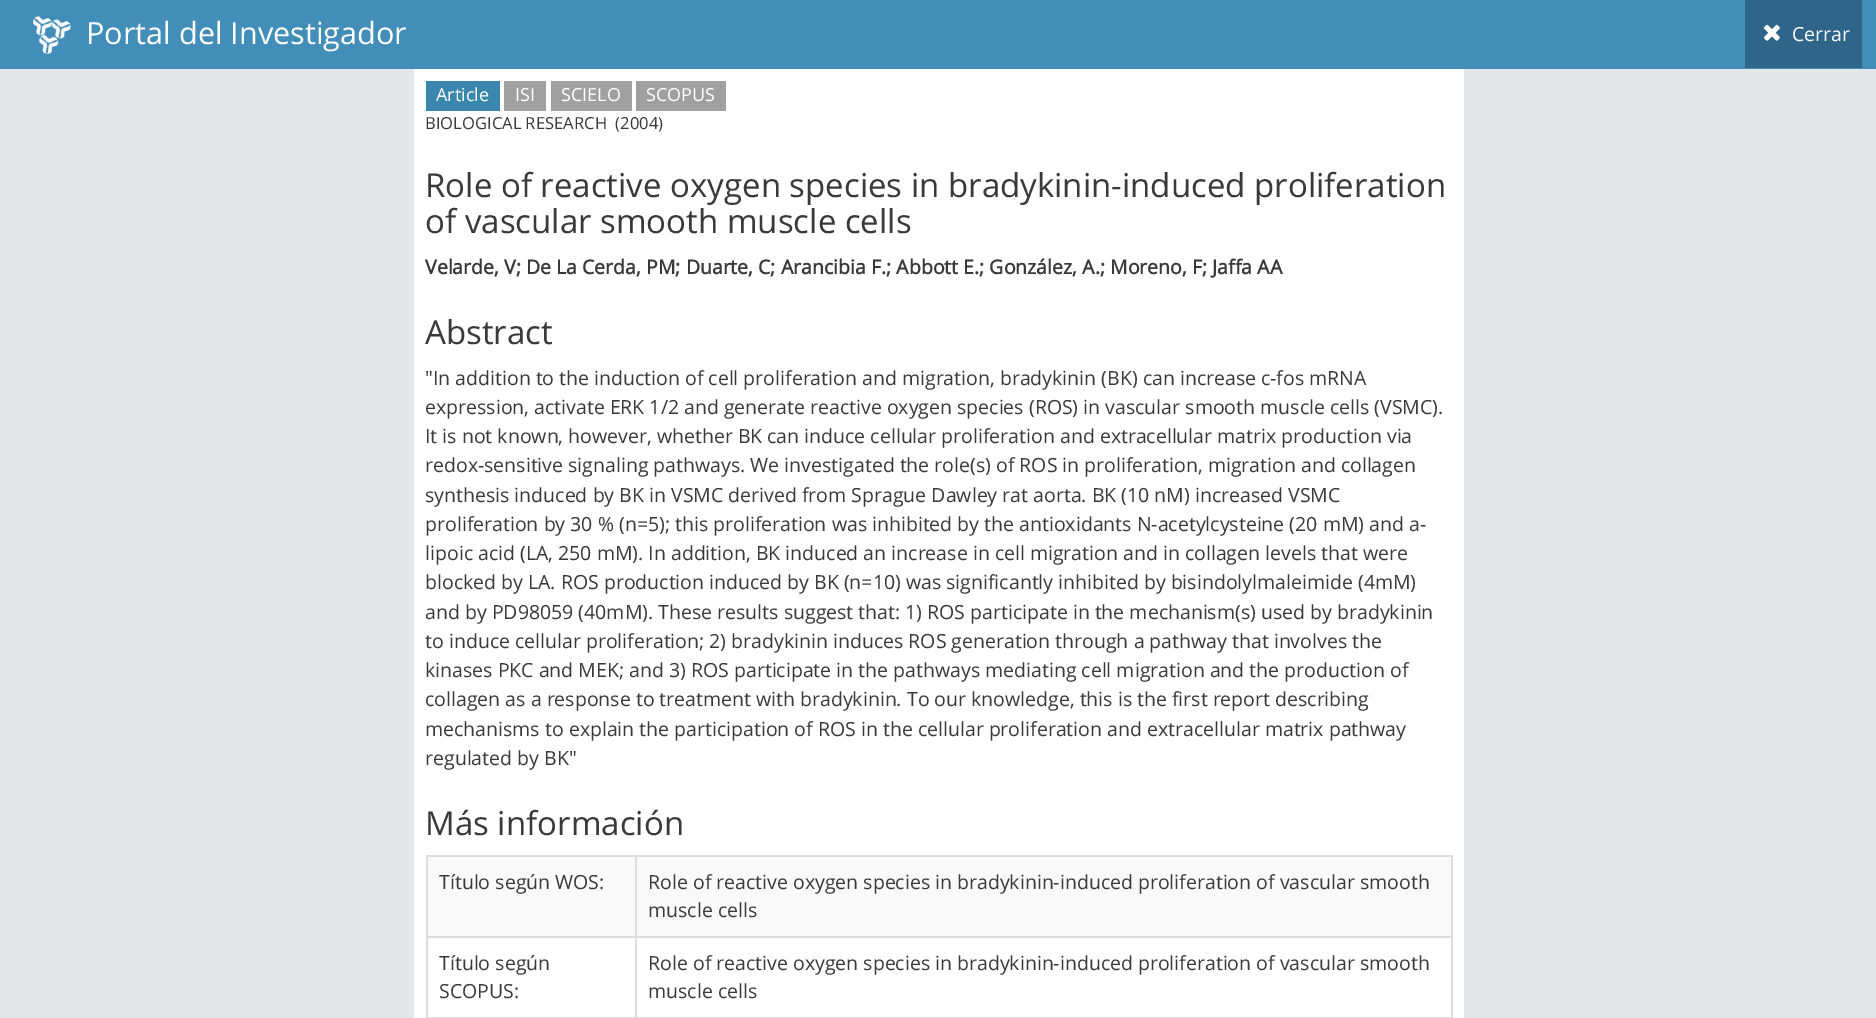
%!PS-Adobe-3.0
%%BoundingBox: 0 0 1876 1018
%%LanguageLevel: 3
%%Pages: 1
%%EndComments
%%BeginProlog
/setink { 3 { 255 div 3 1 roll } repeat setrgbcolor } def
/usefont { [ exch dup neg 0 0 3 -1 roll 0 0 ] selectfont } def
/drawtext { setink usefont moveto show } def
/fillbox { setink rectfill } def
/drawimage { 5 dict begin { /h /w /y /x /name } { exch def } forall
  gsave x y translate w h scale
  w h 8 [w 0 0 h 0 0] name (r) file false 3 colorimage grestore end } def
%%EndProlog
%%BeginSetup
<< /PageSize [1876 1018] >> setpagedevice
%%EndSetup
%%Page: 1 1
0 1018 translate 1 -1 scale
4 setmiterlimit
0 0 1876 1018 228 230 233 fillbox
0 0 1876 69 67 142 185 fillbox
(assets/img1.rgb) 33 16 38 38 drawimage
(Portal del Investigador) 86 44 /OpenSans-Regular 30.6 255 255 255 drawtext
1745 0 117 68 46 101 137 fillbox
(assets/img2.rgb) 1764 24 16 17 drawimage
(Cerrar) 1792 41 /OpenSans-Regular 19.5 255 255 255 drawtext
414 69 1050 949 255 255 255 fillbox
426 81 74 30 58 135 173 fillbox
(Article) 436 101 /OpenSans-Regular 18 255 255 255 drawtext
504 81 42 30 160 160 160 fillbox
(ISI) 515 101 /OpenSans-Regular 18 255 255 255 drawtext
551 81 81 30 160 160 160 fillbox
(SCIELO) 561 101 /OpenSans-Regular 18 255 255 255 drawtext
636 81 90 30 160 160 160 fillbox
(SCOPUS) 646 101 /OpenSans-Regular 18 255 255 255 drawtext
(BIOLOGICAL RESEARCH  \(2004\)) 425 129 /OpenSans-Regular 16.6 57 57 57 drawtext
(Role of reactive oxygen species in bradykinin-induced proliferation) 425 197 /OpenSans-Regular 33 57 57 57 drawtext
(of vascular smooth muscle cells) 425 233 /OpenSans-Regular 33 57 57 57 drawtext
(Velarde, V; De La Cerda, PM; Duarte, C; Arancibia F.; Abbott E.; González, A.; Moreno, F; Jaffa AA) 425 274 /OpenSans-Bold 19.5 57 57 57 drawtext
(Abstract) 425 344 /OpenSans-Regular 33 57 57 57 drawtext
("In addition to the induction of cell proliferation and migration, bradykinin \(BK\) can increase c-fos mRNA) 425 385 /OpenSans-Regular 19.5 57 57 57 drawtext
(expression, activate ERK 1/2 and generate reactive oxygen species \(ROS\) in vascular smooth muscle cells \(VSMC\).) 425 414 /OpenSans-Regular 19.5 57 57 57 drawtext
(It is not known, however, whether BK can induce cellular proliferation and extracellular matrix production via) 425 443 /OpenSans-Regular 19.5 57 57 57 drawtext
(redox-sensitive signaling pathways. We investigated the role\(s\) of ROS in proliferation, migration and collagen) 425 472 /OpenSans-Regular 19.5 57 57 57 drawtext
(synthesis induced by BK in VSMC derived from Sprague Dawley rat aorta. BK \(10 nM\) increased VSMC) 425 502 /OpenSans-Regular 19.5 57 57 57 drawtext
(proliferation by 30 % \(n=5\); this proliferation was inhibited by the antioxidants N-acetylcysteine \(20 mM\) and a-) 425 531 /OpenSans-Regular 19.5 57 57 57 drawtext
(lipoic acid \(LA, 250 mM\). In addition, BK induced an increase in cell migration and in collagen levels that were) 425 560 /OpenSans-Regular 19.5 57 57 57 drawtext
(blocked by LA. ROS production induced by BK \(n=10\) was significantly inhibited by bisindolylmaleimide \(4mM\)) 425 589 /OpenSans-Regular 19.5 57 57 57 drawtext
(and by PD98059 \(40mM\). These results suggest that: 1\) ROS participate in the mechanism\(s\) used by bradykinin) 425 619 /OpenSans-Regular 19.5 57 57 57 drawtext
(to induce cellular proliferation; 2\) bradykinin induces ROS generation through a pathway that involves the) 425 648 /OpenSans-Regular 19.5 57 57 57 drawtext
(kinases PKC and MEK; and 3\) ROS participate in the pathways mediating cell migration and the production of) 425 677 /OpenSans-Regular 19.5 57 57 57 drawtext
(collagen as a response to treatment with bradykinin. To our knowledge, this is the first report describing) 425 706 /OpenSans-Regular 19.5 57 57 57 drawtext
(mechanisms to explain the participation of ROS in the cellular proliferation and extracellular matrix pathway) 425 736 /OpenSans-Regular 19.5 57 57 57 drawtext
(regulated by BK") 425 765 /OpenSans-Regular 19.5 57 57 57 drawtext
(Más información) 425 835 /OpenSans-Regular 33 57 57 57 drawtext
426 855 1026 2 221 221 221 fillbox
1451 855 2 163 221 221 221 fillbox
426 855 2 163 221 221 221 fillbox
428 857 1023 79 249 249 249 fillbox
(Título según WOS:) 439 889 /OpenSans-Regular 19.5 57 57 57 drawtext
635 936 817 2 221 221 221 fillbox
426 1017 1026 1 221 221 221 fillbox
635 936 2 82 221 221 221 fillbox
426 936 210 2 221 221 221 fillbox
635 855 2 83 221 221 221 fillbox
(Role of reactive oxygen species in bradykinin-induced proliferation of vascular smooth) 648 889 /OpenSans-Regular 19.5 57 57 57 drawtext
(muscle cells) 648 917 /OpenSans-Regular 19.5 57 57 57 drawtext
(Título según) 439 970 /OpenSans-Regular 19.5 57 57 57 drawtext
(SCOPUS:) 439 998 /OpenSans-Regular 19.5 57 57 57 drawtext
(Role of reactive oxygen species in bradykinin-induced proliferation of vascular smooth) 648 970 /OpenSans-Regular 19.5 57 57 57 drawtext
(muscle cells) 648 998 /OpenSans-Regular 19.5 57 57 57 drawtext
showpage
%%EOF
